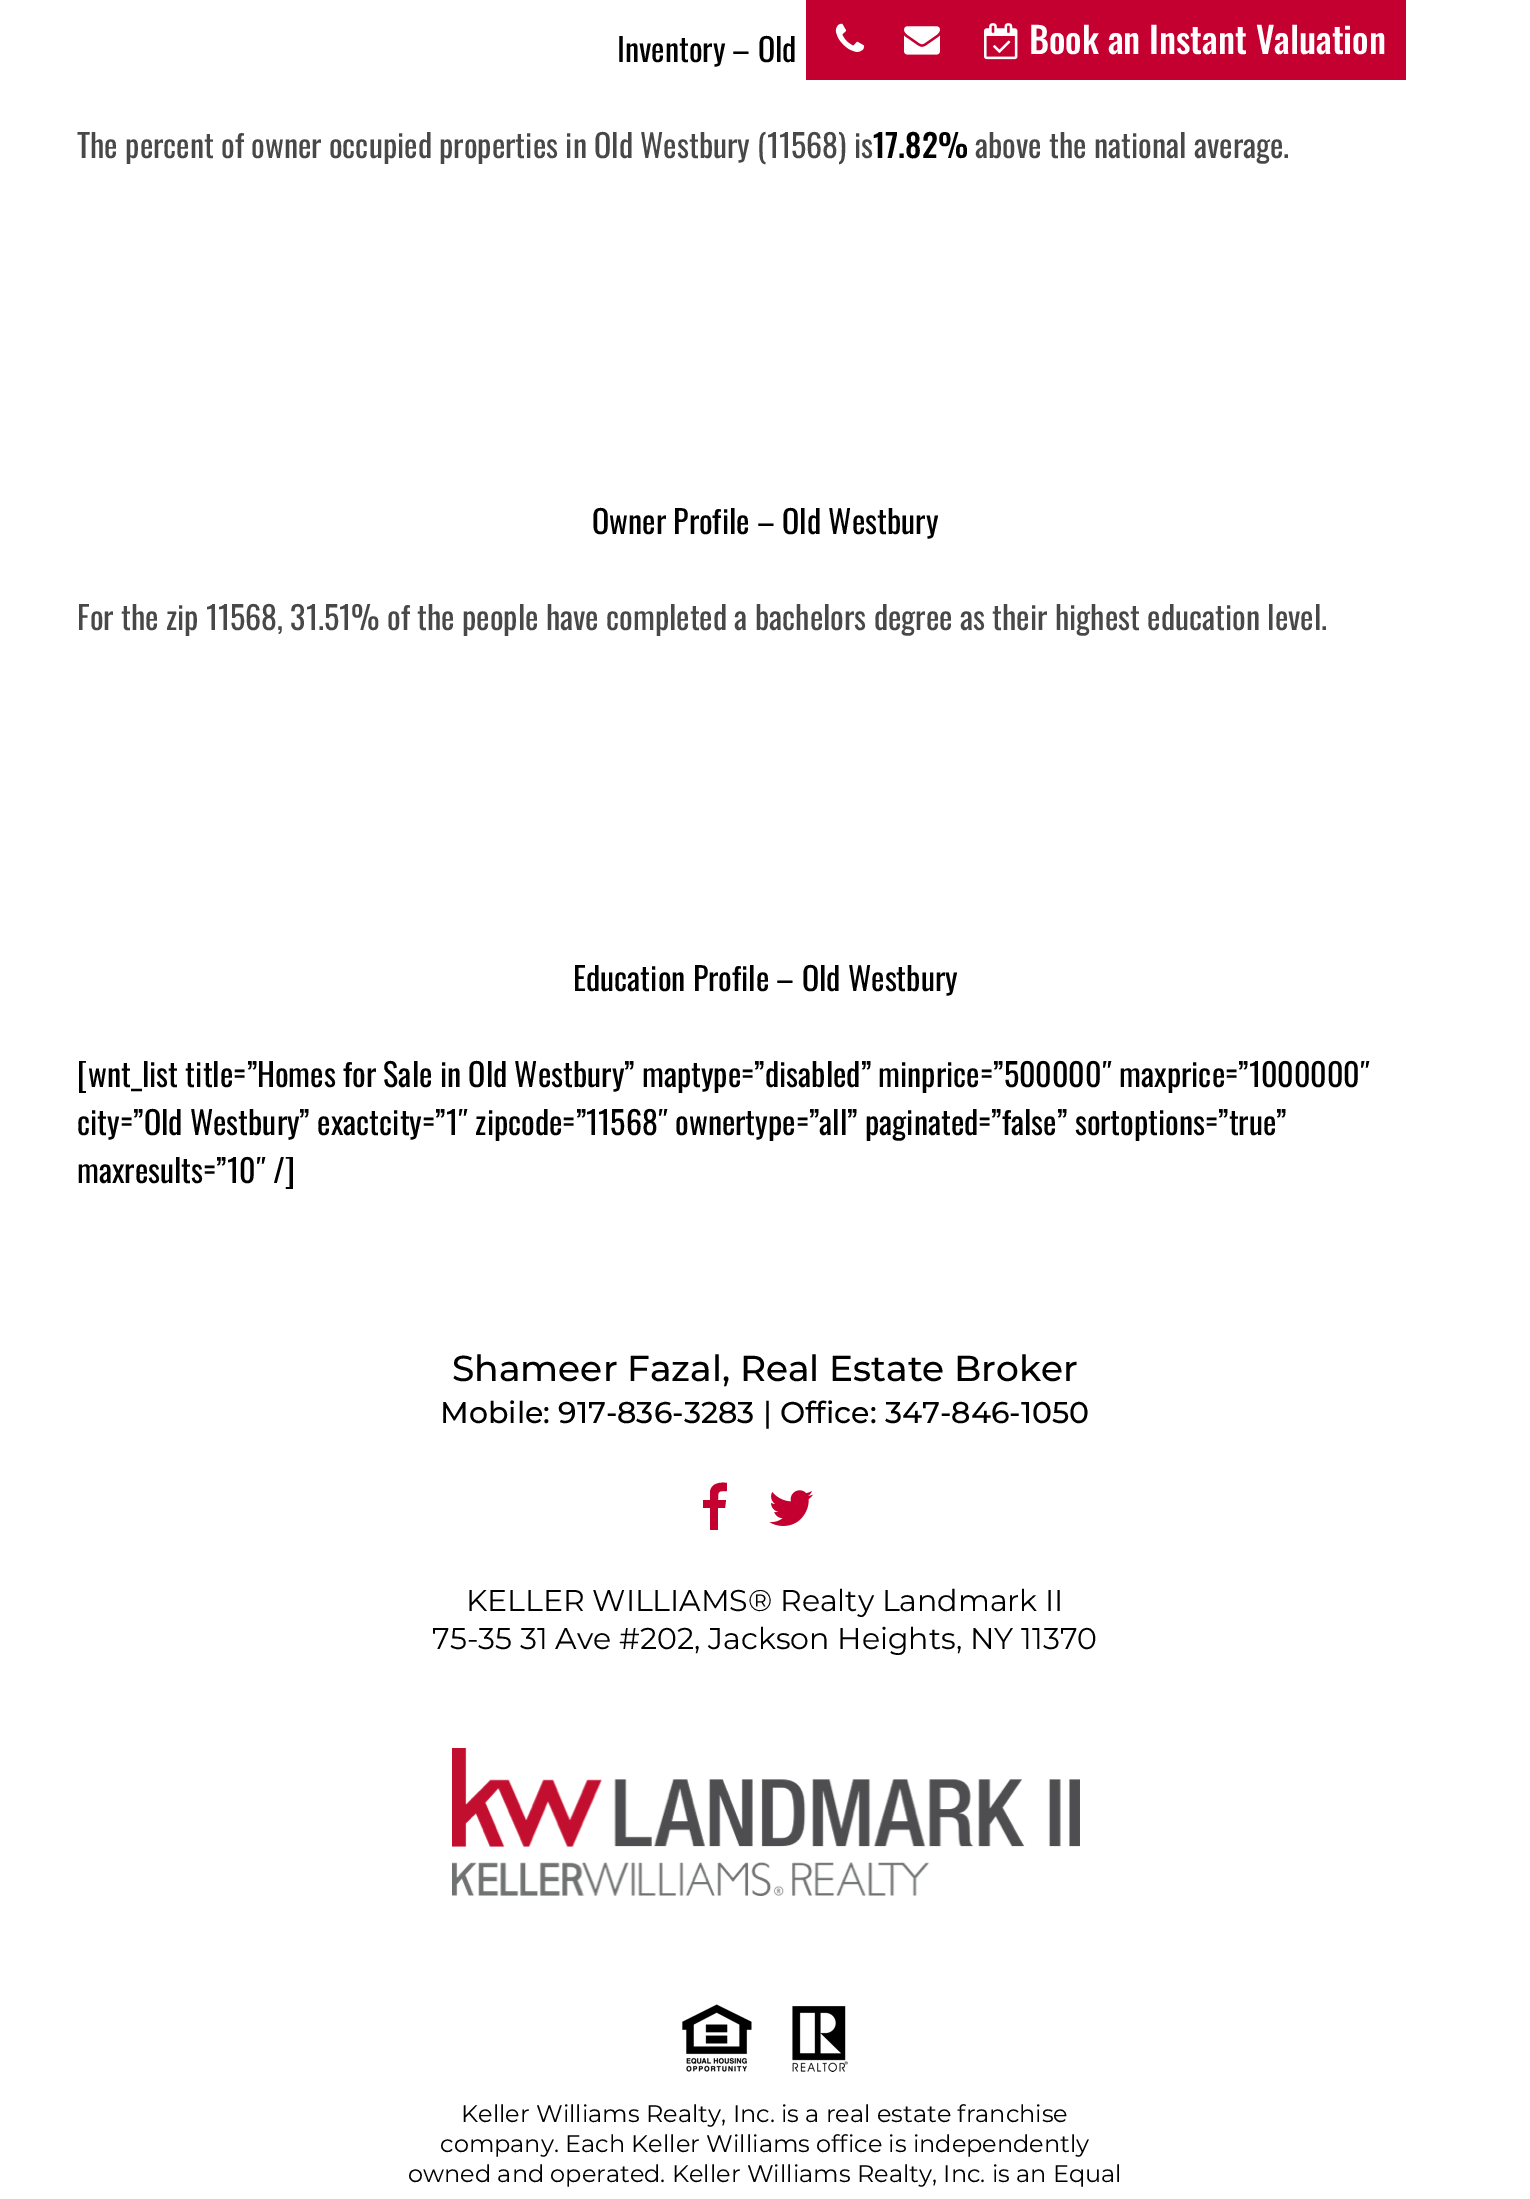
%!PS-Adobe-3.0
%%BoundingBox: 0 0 1530 2199
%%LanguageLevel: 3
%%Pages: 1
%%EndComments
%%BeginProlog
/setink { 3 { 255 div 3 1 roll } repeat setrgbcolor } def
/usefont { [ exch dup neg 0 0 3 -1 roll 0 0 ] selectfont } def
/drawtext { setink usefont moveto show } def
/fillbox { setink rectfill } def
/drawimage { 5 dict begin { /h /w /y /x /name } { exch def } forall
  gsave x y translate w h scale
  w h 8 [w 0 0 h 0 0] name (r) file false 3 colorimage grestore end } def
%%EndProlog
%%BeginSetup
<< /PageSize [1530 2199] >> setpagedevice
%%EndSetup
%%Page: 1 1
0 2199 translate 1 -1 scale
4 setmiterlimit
0 0 1530 2199 255 255 255 fillbox
806 0 600 80 195 0 47 fillbox
(assets/img1.rgb) 835 23 30 29 drawimage
(assets/img2.rgb) 904 26 36 29 drawimage
(assets/img3.rgb) 984 23 34 37 drawimage
(Book an Instant Valuation) 1029 54 /Oswald-Medium 36 255 255 255 drawtext
(Inventory – Old) 617 62 /Oswald-Regular 32 0 0 0 drawtext
(The percent of owner occupied properties in Old Westbury \(11568\) is) 77 158 /Oswald-Regular 32 72 72 72 drawtext
(17.82%) 873 158 /Oswald-Medium 32 0 0 0 drawtext
(above the national average.) 975 158 /Oswald-Regular 32 72 72 72 drawtext
(Owner Profile – Old Westbury) 592 534 /Oswald-Regular 32 0 0 0 drawtext
(For the zip 11568, 31.51% of the people have completed a bachelors degree as their highest education level.) 77 630 /Oswald-Regular 32 72 72 72 drawtext
(Education Profile – Old Westbury) 573 991 /Oswald-Regular 32 0 0 0 drawtext
([wnt_list title=”Homes for Sale in Old Westbury” maptype=”disabled” minprice=”500000″ maxprice=”1000000″) 77 1087 /Oswald-Regular 32 0 0 0 drawtext
(city=”Old Westbury” exactcity=”1″ zipcode=”11568″ ownertype=”all” paginated=”false” sortoptions=”true”) 77 1135 /Oswald-Regular 32 0 0 0 drawtext
(maxresults=”10″ /]) 77 1183 /Oswald-Regular 32 0 0 0 drawtext
(Shameer Fazal, Real Estate Broker) 452 1381 /Montserrat-Medium 36 0 0 0 drawtext
(Mobile: 917-836-3283 | Office: 347-846-1050) 440 1423 /Montserrat-Medium 30 0 0 0 drawtext
195 0 47 setink
727 1483 moveto 727 1491 lineto 718 1491 718 1491 718 1500 curveto 726 1500 lineto 725 1508 lineto 718 1508 lineto 718 1530 lineto 710 1530 lineto 710 1508 lineto 703 1508 lineto 703 1500 lineto 710 1500 lineto 710 1492 lineto 711 1483 720 1482 727 1483 curveto closepath fill
(assets/img4.rgb) 769 1490 44 36 drawimage
(KELLER WILLIAMS® Realty Landmark II) 466 1611 /Montserrat-Regular 30 0 0 0 drawtext
(75-35 31 Ave #202, Jackson Heights, NY 11370) 432 1649 /Montserrat-Regular 30 0 0 0 drawtext
(assets/img5.rgb) 452 1748 628 148 drawimage
(assets/img6.rgb) 682 2004 70 68 drawimage
(assets/img7.rgb) 792 2006 56 66 drawimage
(Keller Williams Realty, Inc. is a real estate franchise) 461 2122 /Montserrat-Regular 24 0 0 0 drawtext
(company. Each Keller Williams office is independently) 440 2152 /Montserrat-Regular 24 0 0 0 drawtext
(owned and operated. Keller Williams Realty, Inc. is an Equal) 408 2182 /Montserrat-Regular 24 0 0 0 drawtext
showpage
%%EOF
